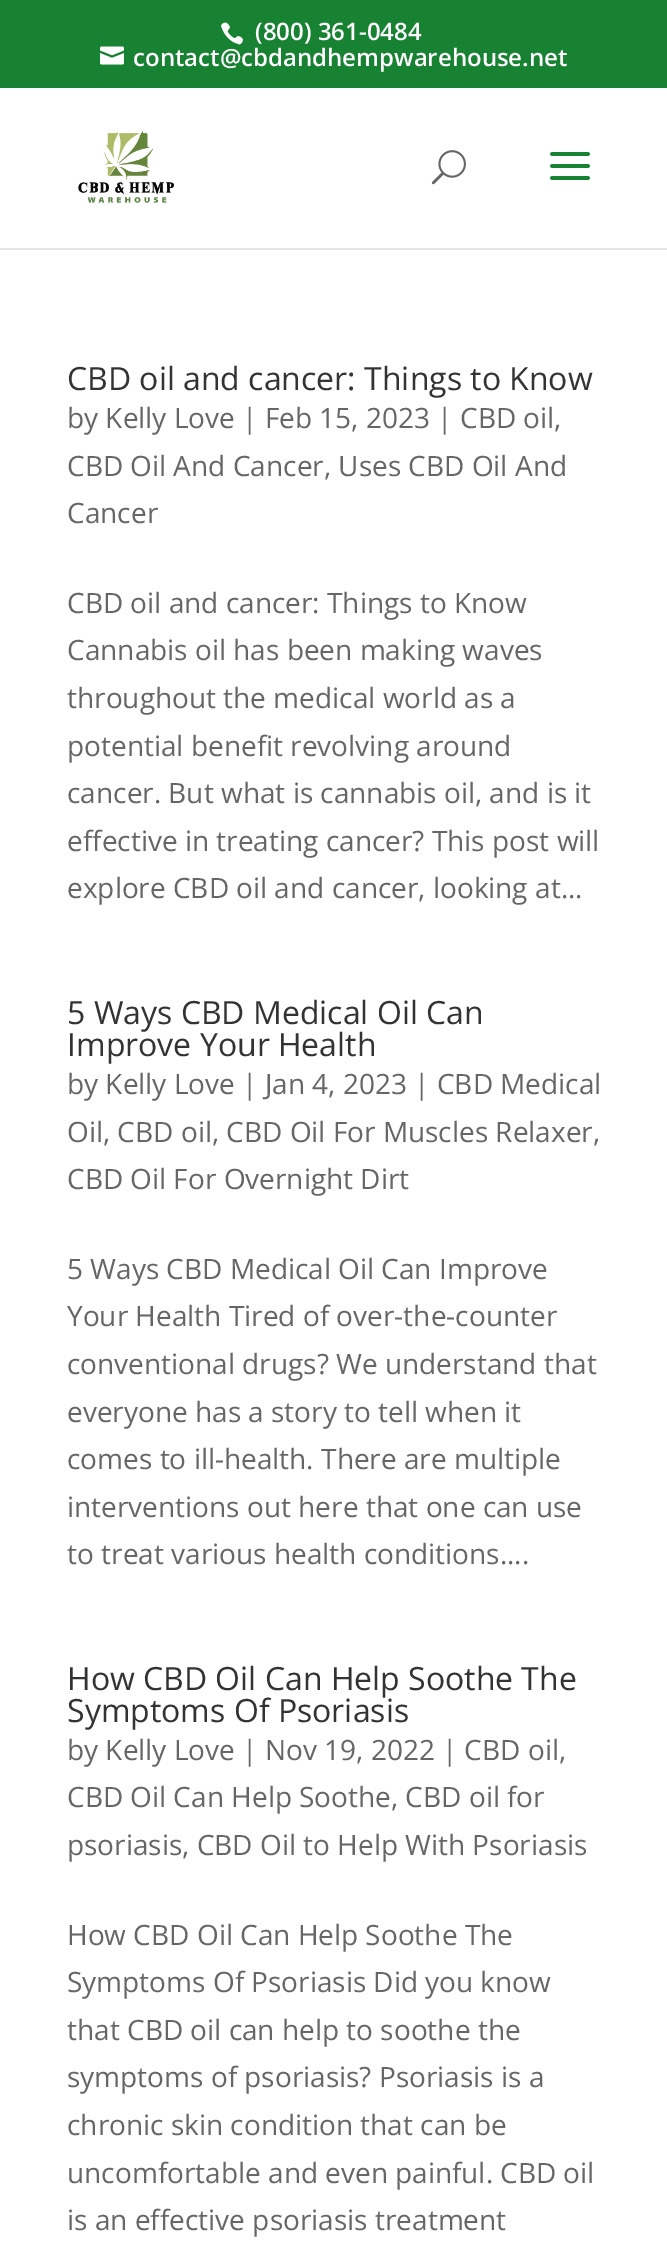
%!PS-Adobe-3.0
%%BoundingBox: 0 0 667 2255
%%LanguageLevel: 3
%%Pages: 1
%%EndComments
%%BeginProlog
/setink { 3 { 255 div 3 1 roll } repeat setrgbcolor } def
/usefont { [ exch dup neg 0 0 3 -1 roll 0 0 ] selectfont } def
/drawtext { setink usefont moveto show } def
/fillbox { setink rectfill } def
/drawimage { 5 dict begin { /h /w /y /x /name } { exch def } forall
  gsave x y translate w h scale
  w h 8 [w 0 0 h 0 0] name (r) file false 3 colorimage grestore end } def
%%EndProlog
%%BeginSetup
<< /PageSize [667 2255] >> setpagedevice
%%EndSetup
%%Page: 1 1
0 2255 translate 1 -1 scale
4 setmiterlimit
0 0 667 2255 255 255 255 fillbox
0 0 667 88 24 130 51 fillbox
(assets/img1.rgb) 221 22 22 23 drawimage
(\(800\) 361-0484) 255 40 /OpenSans-SemiBold 24 255 255 255 drawtext
(assets/img2.rgb) 100 46 24 19 drawimage
(contact@cbdandhempwarehouse.net) 133 66 /OpenSans-SemiBold 24 255 255 255 drawtext
0 248 667 2 230 230 230 fillbox
(assets/img3.rgb) 78 131 96 72 drawimage
(assets/img4.rgb) 431 150 35 35 drawimage
(assets/img5.rgb) 550 152 40 28 drawimage
(CBD oil and cancer: Things to Know) 67 390 /OpenSans-Regular 32 51 51 51 drawtext
(by Kelly Love | Feb 15, 2023 | CBD oil,) 67 428 /OpenSans-Regular 28 102 102 102 drawtext
(CBD Oil And Cancer, Uses CBD Oil And) 67 476 /OpenSans-Regular 28 102 102 102 drawtext
(Cancer) 67 523 /OpenSans-Regular 28 102 102 102 drawtext
(CBD oil and cancer: Things to Know) 67 613 /OpenSans-Regular 28 102 102 102 drawtext
(Cannabis oil has been making waves) 67 660 /OpenSans-Regular 28 102 102 102 drawtext
(throughout the medical world as a) 67 708 /OpenSans-Regular 28 102 102 102 drawtext
(potential benefit revolving around) 67 756 /OpenSans-Regular 28 102 102 102 drawtext
(cancer. But what is cannabis oil, and is it) 67 803 /OpenSans-Regular 28 102 102 102 drawtext
(effective in treating cancer? This post will) 67 851 /OpenSans-Regular 28 102 102 102 drawtext
(explore CBD oil and cancer, looking at...) 67 898 /OpenSans-Regular 28 102 102 102 drawtext
(5 Ways CBD Medical Oil Can) 67 1024 /OpenSans-Regular 32 51 51 51 drawtext
(Improve Your Health) 67 1056 /OpenSans-Regular 32 51 51 51 drawtext
(by Kelly Love | Jan 4, 2023 | CBD Medical) 67 1094 /OpenSans-Regular 28 102 102 102 drawtext
(Oil, CBD oil, CBD Oil For Muscles Relaxer,) 67 1142 /OpenSans-Regular 28 102 102 102 drawtext
(CBD Oil For Overnight Dirt) 67 1189 /OpenSans-Regular 28 102 102 102 drawtext
(5 Ways CBD Medical Oil Can Improve) 67 1279 /OpenSans-Regular 28 102 102 102 drawtext
(Your Health Tired of over-the-counter) 67 1326 /OpenSans-Regular 28 102 102 102 drawtext
(conventional drugs? We understand that) 67 1374 /OpenSans-Regular 28 102 102 102 drawtext
(everyone has a story to tell when it) 67 1422 /OpenSans-Regular 28 102 102 102 drawtext
(comes to ill-health. There are multiple) 67 1469 /OpenSans-Regular 28 102 102 102 drawtext
(interventions out here that one can use) 67 1517 /OpenSans-Regular 28 102 102 102 drawtext
(to treat various health conditions....) 67 1564 /OpenSans-Regular 28 102 102 102 drawtext
(How CBD Oil Can Help Soothe The) 67 1690 /OpenSans-Regular 32 51 51 51 drawtext
(Symptoms Of Psoriasis) 67 1722 /OpenSans-Regular 32 51 51 51 drawtext
(by Kelly Love | Nov 19, 2022 | CBD oil,) 67 1760 /OpenSans-Regular 28 102 102 102 drawtext
(CBD Oil Can Help Soothe, CBD oil for) 67 1807 /OpenSans-Regular 28 102 102 102 drawtext
(psoriasis, CBD Oil to Help With Psoriasis) 67 1855 /OpenSans-Regular 28 102 102 102 drawtext
(How CBD Oil Can Help Soothe The) 67 1945 /OpenSans-Regular 28 102 102 102 drawtext
(Symptoms Of Psoriasis Did you know) 67 1992 /OpenSans-Regular 28 102 102 102 drawtext
(that CBD oil can help to soothe the) 67 2040 /OpenSans-Regular 28 102 102 102 drawtext
(symptoms of psoriasis? Psoriasis is a) 67 2087 /OpenSans-Regular 28 102 102 102 drawtext
(chronic skin condition that can be) 67 2135 /OpenSans-Regular 28 102 102 102 drawtext
(uncomfortable and even painful. CBD oil) 67 2183 /OpenSans-Regular 28 102 102 102 drawtext
(is an effective psoriasis treatment) 67 2230 /OpenSans-Regular 28 102 102 102 drawtext
showpage
%%EOF
